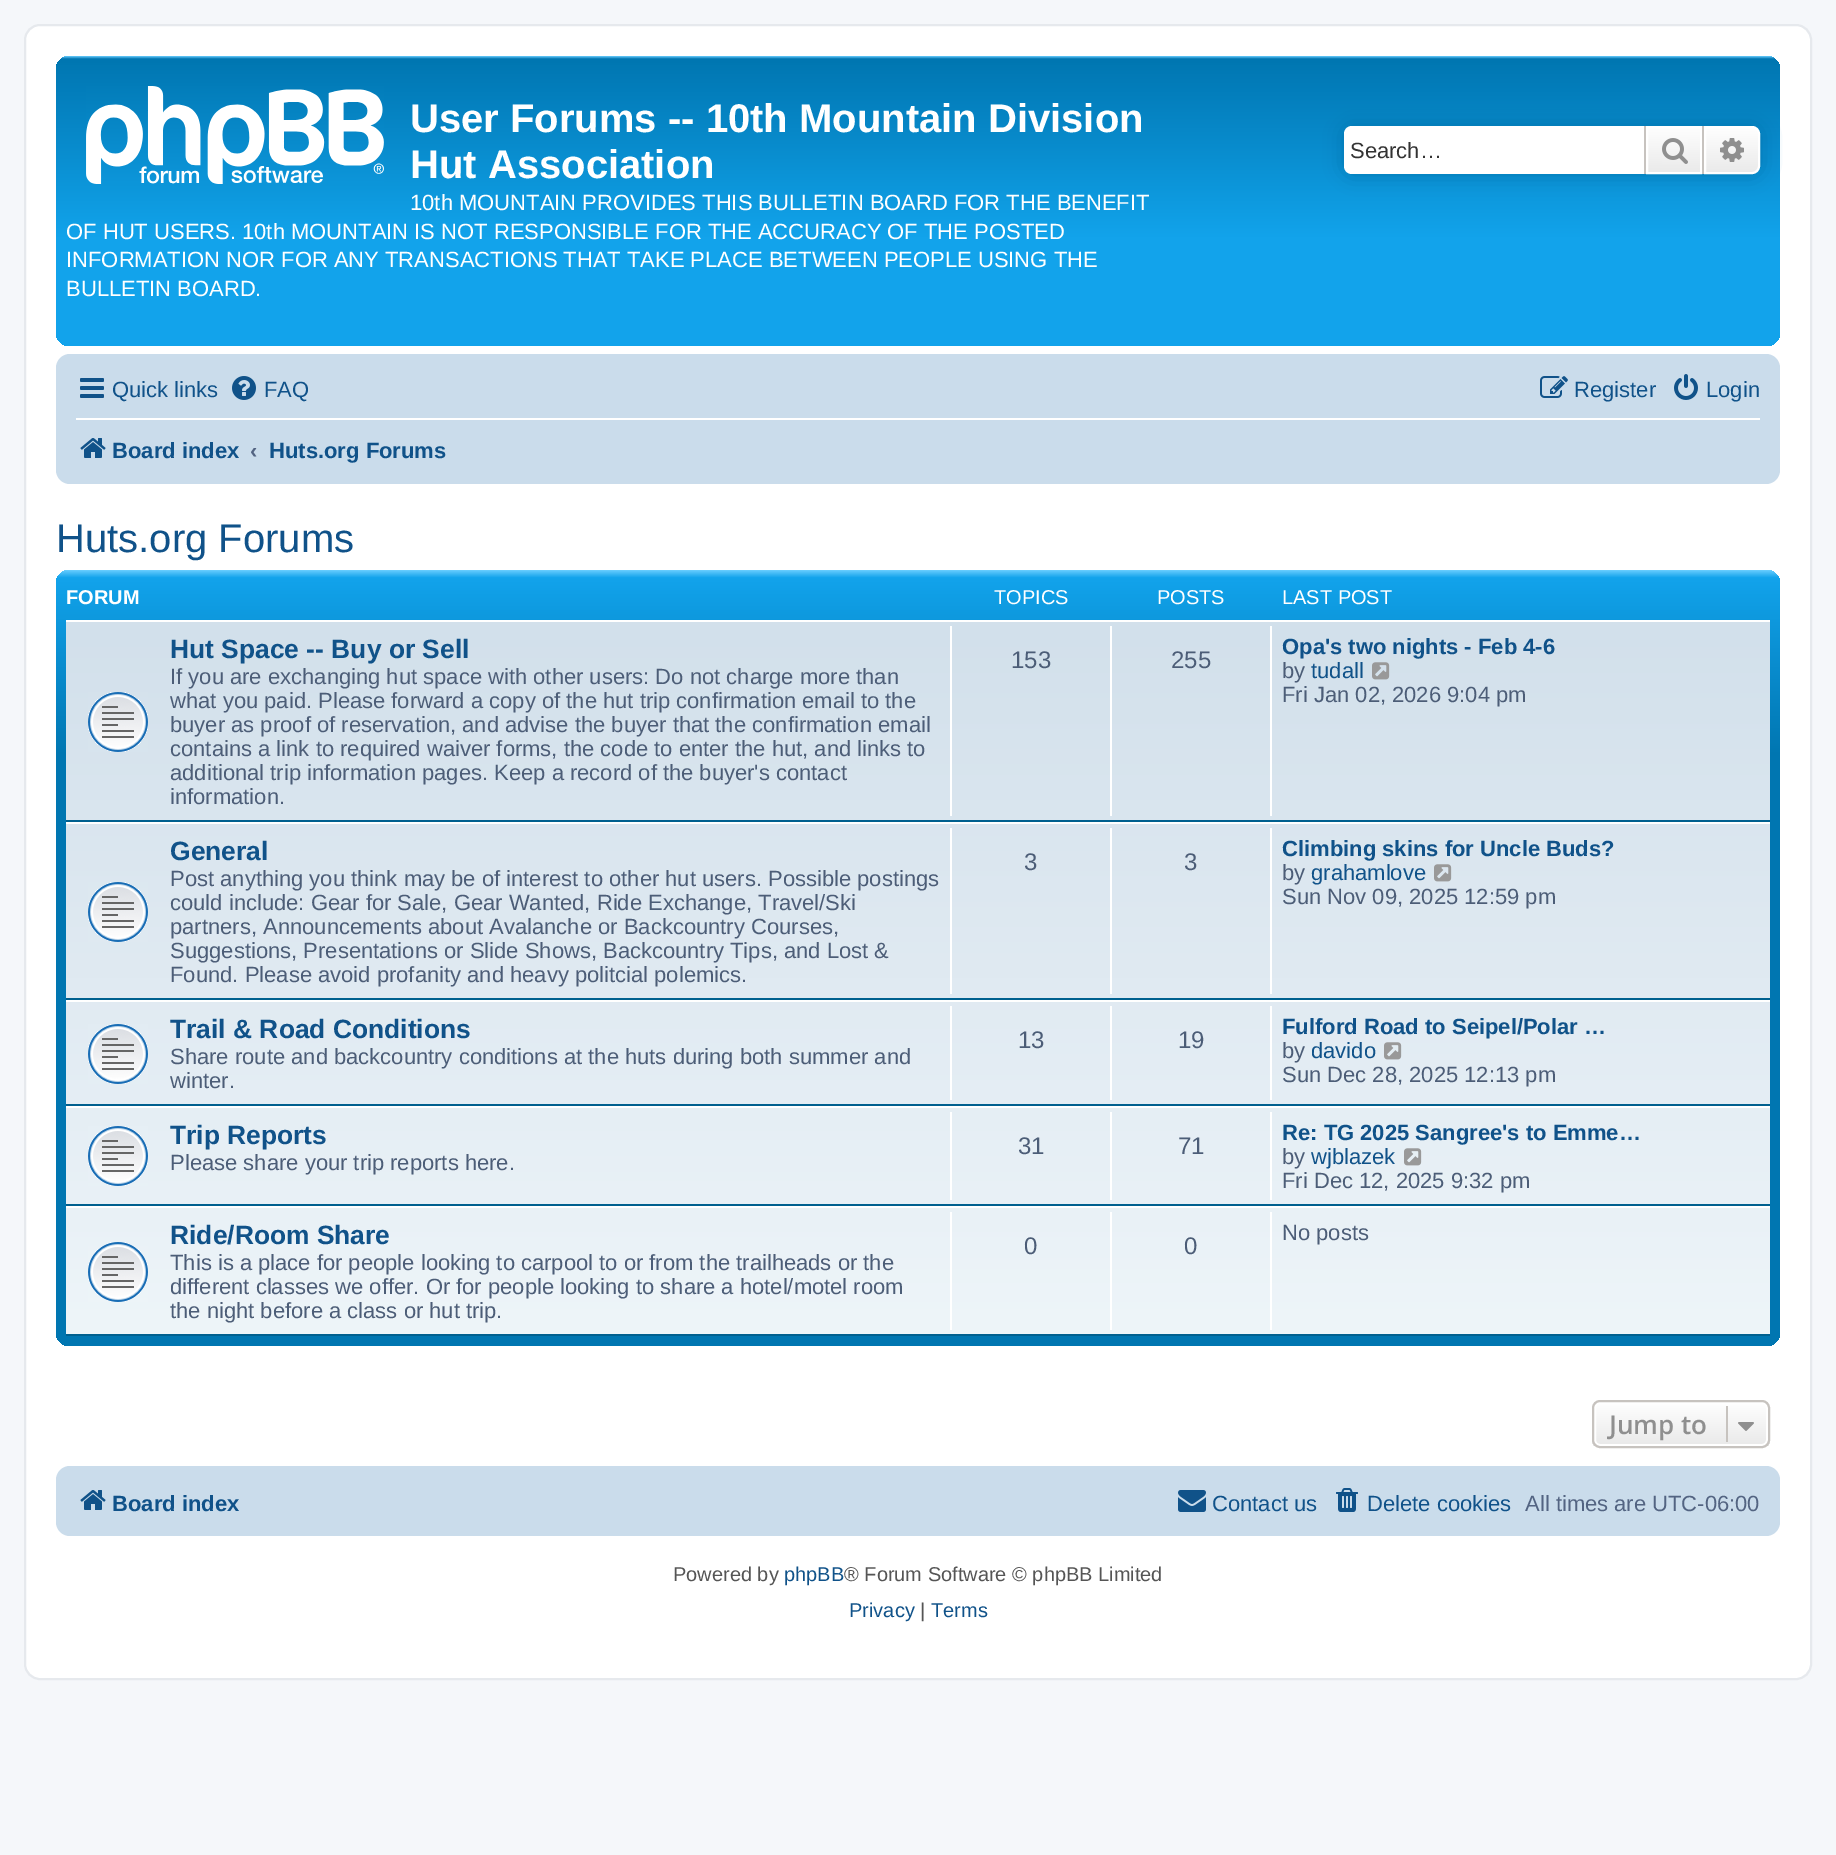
%!PS-Adobe-3.0
%%BoundingBox: 0 0 1836 1855
%%LanguageLevel: 3
%%Pages: 1
%%EndComments
%%BeginProlog
/setink { 3 { 255 div 3 1 roll } repeat setrgbcolor } def
/usefont { [ exch dup neg 0 0 3 -1 roll 0 0 ] selectfont } def
/drawtext { setink usefont moveto show } def
/fillbox { setink rectfill } def
/setalpha { dup .setfillconstantalpha .setstrokeconstantalpha } def
/rrect { 5 dict begin { /r /h /w /y /x } { exch def } forall
  x r add y moveto x w add y 2 copy h add r arct x w add y h add x 1 index r arct
  x y h add x y r arct x y 2 copy exch w add exch r arct closepath end } def
/softshadow { 12 dict begin { /a /b /q /h /w /y /x } { exch def } forall gsave /was 0 def
  9 -2 -9 { dup b mul 4 div /e exch def 1 sub .425 mul 2.718 exch exp 1 add a .99 .min exch div /now exch def
    1 1 now sub 1 was sub div sub setalpha /was now def
    w h .min e 2 mul add 0 gt { x e sub y e sub w e 2 mul add h e 2 mul add
      q e add b .6 mul add w h .min 2 div e add .min 0 .max rrect fill } if } for grestore end } def
/drawimage { 5 dict begin { /h /w /y /x /name } { exch def } forall
  gsave x y translate w h scale
  w h 8 [w 0 0 h 0 0] name (r) file false 3 colorimage grestore end } def
%%EndProlog
%%BeginSetup
<< /PageSize [1836 1855] /PageUsesTransparency true >> setpagedevice
%%EndSetup
%%Page: 1 1
0 .pushpdf14devicefilter
0 1855 translate 1 -1 scale
4 setmiterlimit
0 0 1836 1855 245 247 250 fillbox
255 255 255 setink
25 25 1786 1654 15 rrect gsave fill grestore
230 233 237 setink
2 setlinewidth
stroke
gsave 56 56 1724 290 14 rrect clip newpath
<< /ShadingType 2 /ColorSpace /DeviceRGB /Coords [918 56 918 346] /Extend [true true] /Function << /FunctionType 3 /Domain [0 1] /Functions [<< /FunctionType 2 /Domain [0 1] /C0 [0.416 0.808 1] /C1 [0 0.463 0.694] /N 1 >> << /FunctionType 2 /Domain [0 1] /C0 [0 0.463 0.694] /C1 [0.071 0.639 0.922] /N 1 >> << /FunctionType 2 /Domain [0 1] /C0 [0.071 0.639 0.922] /C1 [0.071 0.639 0.922] /N 1 >>] /Bounds [0.01 0.63] /Encode [0 1 0 1 0 1] >> >> shfill grestore
(assets/img1.rgb) 86 86 298 98 drawimage
(User Forums -- 10th Mountain Division) 410 132 /LiberationSans-Bold 40 255 255 255 drawtext
(Hut Association) 410 178 /LiberationSans-Bold 40 255 255 255 drawtext
(10th MOUNTAIN PROVIDES THIS BULLETIN BOARD FOR THE BENEFIT) 410 210 /LiberationSans-Regular 22 255 255 255 drawtext
(OF HUT USERS. 10th MOUNTAIN IS NOT RESPONSIBLE FOR THE ACCURACY OF THE POSTED) 66 239 /LiberationSans-Regular 22 255 255 255 drawtext
(INFORMATION NOR FOR ANY TRANSACTIONS THAT TAKE PLACE BETWEEN PEOPLE USING THE) 66 267 /LiberationSans-Regular 22 255 255 255 drawtext
(BULLETIN BOARD.) 66 296 /LiberationSans-Regular 22 255 255 255 drawtext
0 117 176 setink
1344 126 416 48 8 10 1 softshadow
255 255 255 setink
1352 126 moveto 1644 126 lineto 1644 174 lineto 1352 174 lineto 1347.5 174 1344 170.5 1344 166 curveto 1344 134 lineto 1344 129.5 1347.5 126 1352 126 curveto closepath fill
(Search…) 1350 158 /LiberationSans-Regular 22 51 51 51 drawtext
gsave 1648 128 moveto 1700 128 lineto 1700 172 lineto 1648 172 lineto closepath clip newpath
<< /ShadingType 2 /ColorSpace /DeviceRGB /Coords [1674 126 1674 174] /Extend [true true] /Function << /FunctionType 2 /Domain [0 1] /C0 [1 1 1] /C1 [0.914 0.914 0.914] /N 1 >> >> shfill grestore
255 255 255 setink
1647 127 54 46 rectstroke
1702 126 2 48 199 195 191 fillbox
1644 126 2 48 199 195 191 fillbox
(assets/img2.rgb) 1662 138 26 26 drawimage
gsave 1705 127 moveto 1752 127 lineto 1756 127 1759 130 1759 134 curveto 1759 166 lineto 1759 170 1756 173 1752 173 curveto 1705 173 lineto closepath clip newpath
<< /ShadingType 2 /ColorSpace /DeviceRGB /Coords [1732 126 1732 174] /Extend [true true] /Function << /FunctionType 2 /Domain [0 1] /C0 [1 1 1] /C1 [0.914 0.914 0.914] /N 1 >> >> shfill grestore
255 255 255 setink
1705 127 moveto 1752 127 lineto 1756 127 1759 130 1759 134 curveto 1759 166 lineto 1759 170 1756 173 1752 173 curveto 1705 173 lineto closepath stroke
(assets/img3.rgb) 1720 138 24 24 drawimage
202 220 235 setink
56 354 1724 130 14 rrect fill
(assets/img4.rgb) 80 378 24 20 drawimage
(Quick links) 112 397 /LiberationSans-Regular 22 16 82 137 drawtext
(assets/img5.rgb) 232 376 24 24 drawimage
(FAQ) 264 397 /LiberationSans-Regular 22 16 82 137 drawtext
(assets/img6.rgb) 1540 376 28 22 drawimage
(Register) 1574 397 /LiberationSans-Regular 22 16 82 137 drawtext
(assets/img7.rgb) 1674 374 24 26 drawimage
(Login) 1706 397 /LiberationSans-Regular 22 16 82 137 drawtext
76 418 1684 2 255 255 255 fillbox
(assets/img8.rgb) 80 438 26 20 drawimage
(Board index) 112 458 /LiberationSans-Bold 22 16 82 137 drawtext
(‹) 250 458 /LiberationSans-Bold 22 83 100 130 drawtext
(Huts.org Forums) 269 458 /LiberationSans-Bold 22 16 82 137 drawtext
(Huts.org Forums) 56 552 /LiberationSans-Regular 40 16 82 137 drawtext
gsave 56 570 1724 776 14 rrect clip newpath
<< /ShadingType 2 /ColorSpace /DeviceRGB /Coords [918 570 918 1346] /Extend [true true] /Function << /FunctionType 3 /Domain [0 1] /Functions [<< /FunctionType 2 /Domain [0 1] /C0 [0.416 0.808 1] /C1 [0.071 0.639 0.922] /N 1 >> << /FunctionType 2 /Domain [0 1] /C0 [0.071 0.639 0.922] /C1 [0 0.463 0.694] /N 1 >> << /FunctionType 2 /Domain [0 1] /C0 [0 0.463 0.694] /C1 [0 0.463 0.694] /N 1 >>] /Bounds [0.01 0.24] /Encode [0 1 0 1 0 1] >> >> shfill grestore
(FORUM) 66 604 /LiberationSans-Bold 20 255 255 255 drawtext
(TOPICS) 994 604 /LiberationSans-Regular 20 255 255 255 drawtext
(POSTS) 1157 604 /LiberationSans-Regular 20 255 255 255 drawtext
(LAST POST) 1282 604 /LiberationSans-Regular 20 255 255 255 drawtext
gsave 66 622 moveto 1770 622 lineto 1770 1334 lineto 66 1334 lineto closepath clip newpath
<< /ShadingType 2 /ColorSpace /DeviceRGB /Coords [918 620 918 1336] /Extend [true true] /Function << /FunctionType 2 /Domain [0 1] /C0 [0.824 0.878 0.922] /C1 [0.933 0.961 0.976] /N 1 >> >> shfill grestore
66 620 1704 2 255 255 255 fillbox
66 820 1704 2 0 96 143 fillbox
(assets/img9.rgb) 88 692 60 60 drawimage
(Hut Space -- Buy or Sell) 170 658 /LiberationSans-Bold 26.4 16 82 137 drawtext
(If you are exchanging hut space with other users: Do not charge more than) 170 684 /LiberationSans-Regular 22 76 93 119 drawtext
(what you paid. Please forward a copy of the hut trip confirmation email to the) 170 708 /LiberationSans-Regular 22 76 93 119 drawtext
(buyer as proof of reservation, and advise the buyer that the confirmation email) 170 732 /LiberationSans-Regular 22 76 93 119 drawtext
(contains a link to required waiver forms, the code to enter the hut, and links to) 170 756 /LiberationSans-Regular 22 76 93 119 drawtext
(additional trip information pages. Keep a record of the buyer's contact) 170 780 /LiberationSans-Regular 22 76 93 119 drawtext
(information.) 170 804 /LiberationSans-Regular 22 76 93 119 drawtext
950 626 2 190 255 255 255 fillbox
(153) 1011 668 /LiberationSans-Regular 24 76 93 119 drawtext
1110 626 2 190 255 255 255 fillbox
(255) 1171 668 /LiberationSans-Regular 24 76 93 119 drawtext
1270 626 2 190 255 255 255 fillbox
(Opa's two nights - Feb 4-6) 1282 654 /LiberationSans-Bold 22 16 82 137 drawtext
(by) 1282 678 /LiberationSans-Regular 22 76 93 119 drawtext
(tudall) 1311 678 /LiberationSans-Regular 22 16 82 137 drawtext
(assets/img10.rgb) 1372 662 18 18 drawimage
(Fri Jan 02, 2026 9:04 pm) 1282 702 /LiberationSans-Regular 22 76 93 119 drawtext
66 822 1704 2 255 255 255 fillbox
66 998 1704 2 0 96 143 fillbox
(assets/img11.rgb) 88 882 60 60 drawimage
(General) 170 860 /LiberationSans-Bold 26.4 16 82 137 drawtext
(Post anything you think may be of interest to other hut users. Possible postings) 170 886 /LiberationSans-Regular 22 76 93 119 drawtext
(could include: Gear for Sale, Gear Wanted, Ride Exchange, Travel/Ski) 170 910 /LiberationSans-Regular 22 76 93 119 drawtext
(partners, Announcements about Avalanche or Backcountry Courses,) 170 934 /LiberationSans-Regular 22 76 93 119 drawtext
(Suggestions, Presentations or Slide Shows, Backcountry Tips, and Lost &) 170 958 /LiberationSans-Regular 22 76 93 119 drawtext
(Found. Please avoid profanity and heavy politcial polemics.) 170 982 /LiberationSans-Regular 22 76 93 119 drawtext
950 828 2 166 255 255 255 fillbox
(3) 1024 870 /LiberationSans-Regular 24 76 93 119 drawtext
1110 828 2 166 255 255 255 fillbox
(3) 1184 870 /LiberationSans-Regular 24 76 93 119 drawtext
1270 828 2 166 255 255 255 fillbox
(Climbing skins for Uncle Buds?) 1282 856 /LiberationSans-Bold 22 16 82 137 drawtext
(by) 1282 880 /LiberationSans-Regular 22 76 93 119 drawtext
(grahamlove) 1311 880 /LiberationSans-Regular 22 16 82 137 drawtext
(assets/img12.rgb) 1434 864 18 18 drawimage
(Sun Nov 09, 2025 12:59 pm) 1282 904 /LiberationSans-Regular 22 76 93 119 drawtext
66 1000 1704 2 255 255 255 fillbox
66 1104 1704 2 0 96 143 fillbox
(assets/img13.rgb) 88 1024 60 60 drawimage
(Trail & Road Conditions) 170 1038 /LiberationSans-Bold 26.4 16 82 137 drawtext
(Share route and backcountry conditions at the huts during both summer and) 170 1064 /LiberationSans-Regular 22 76 93 119 drawtext
(winter.) 170 1088 /LiberationSans-Regular 22 76 93 119 drawtext
950 1006 2 94 255 255 255 fillbox
(13) 1018 1048 /LiberationSans-Regular 24 76 93 119 drawtext
1110 1006 2 94 255 255 255 fillbox
(19) 1178 1048 /LiberationSans-Regular 24 76 93 119 drawtext
1270 1006 2 94 255 255 255 fillbox
(Fulford Road to Seipel/Polar …) 1282 1034 /LiberationSans-Bold 22 16 82 137 drawtext
(by) 1282 1058 /LiberationSans-Regular 22 76 93 119 drawtext
(davido) 1311 1058 /LiberationSans-Regular 22 16 82 137 drawtext
(assets/img14.rgb) 1384 1042 18 18 drawimage
(Sun Dec 28, 2025 12:13 pm) 1282 1082 /LiberationSans-Regular 22 76 93 119 drawtext
66 1106 1704 2 255 255 255 fillbox
66 1204 1704 2 0 96 143 fillbox
(assets/img15.rgb) 88 1126 60 60 drawimage
(Trip Reports) 170 1144 /LiberationSans-Bold 26.4 16 82 137 drawtext
(Please share your trip reports here.) 170 1170 /LiberationSans-Regular 22 76 93 119 drawtext
950 1112 2 88 255 255 255 fillbox
(31) 1018 1154 /LiberationSans-Regular 24 76 93 119 drawtext
1110 1112 2 88 255 255 255 fillbox
(71) 1178 1154 /LiberationSans-Regular 24 76 93 119 drawtext
1270 1112 2 88 255 255 255 fillbox
(Re: TG 2025 Sangree's to Emme…) 1282 1140 /LiberationSans-Bold 22 16 82 137 drawtext
(by) 1282 1164 /LiberationSans-Regular 22 76 93 119 drawtext
(wjblazek) 1311 1164 /LiberationSans-Regular 22 16 82 137 drawtext
(assets/img16.rgb) 1404 1148 18 18 drawimage
(Fri Dec 12, 2025 9:32 pm) 1282 1188 /LiberationSans-Regular 22 76 93 119 drawtext
66 1206 1704 2 255 255 255 fillbox
66 1334 1704 2 0 96 143 fillbox
(assets/img17.rgb) 88 1242 60 60 drawimage
(Ride/Room Share) 170 1244 /LiberationSans-Bold 26.4 16 82 137 drawtext
(This is a place for people looking to carpool to or from the trailheads or the) 170 1270 /LiberationSans-Regular 22 76 93 119 drawtext
(different classes we offer. Or for people looking to share a hotel/motel room) 170 1294 /LiberationSans-Regular 22 76 93 119 drawtext
(the night before a class or hut trip.) 170 1318 /LiberationSans-Regular 22 76 93 119 drawtext
950 1212 2 118 255 255 255 fillbox
(0) 1024 1254 /LiberationSans-Regular 24 76 93 119 drawtext
1110 1212 2 118 255 255 255 fillbox
(0) 1184 1254 /LiberationSans-Regular 24 76 93 119 drawtext
1270 1212 2 118 255 255 255 fillbox
(No posts) 1282 1240 /LiberationSans-Regular 22 76 93 119 drawtext
gsave
1592 1400 178 48 8 rrect clip newpath
gsave 1592 1402 moveto 1770 1402 lineto 1770 1446 lineto 1592 1446 lineto closepath clip newpath
<< /ShadingType 2 /ColorSpace /DeviceRGB /Coords [1681 1402 1681 1446] /Extend [true true] /Function << /FunctionType 2 /Domain [0 1] /C0 [1 1 1] /C1 [0.914 0.914 0.914] /N 1 >> >> shfill grestore
grestore
255 255 255 setink
1595 1403 172 42 5 rrect stroke
199 195 191 setink
1593 1401 176 46 7 rrect stroke
(Jump to) 1609 1434 /OpenSans-SemiBold 26 143 143 143 drawtext
1726 1406 2 36 199 195 191 fillbox
(assets/img18.rgb) 1738 1422 16 9 drawimage
202 220 235 setink
56 1466 1724 70 14 rrect fill
(assets/img8.rgb) 80 1490 26 20 drawimage
(Board index) 112 1511 /LiberationSans-Bold 22 16 82 137 drawtext
(assets/img19.rgb) 1178 1490 28 22 drawimage
(Contact us) 1212 1511 /LiberationSans-Regular 22 16 82 137 drawtext
(assets/img20.rgb) 1336 1488 22 24 drawimage
(Delete cookies) 1367 1511 /LiberationSans-Regular 22 16 82 137 drawtext
(All times are UTC-06:00) 1525 1511 /LiberationSans-Regular 22 83 100 130 drawtext
(Powered by) 673 1581 /LiberationSans-Regular 20 85 85 85 drawtext
(phpBB) 784 1581 /LiberationSans-Regular 20 16 82 137 drawtext
(® Forum Software © phpBB Limited) 844 1581 /LiberationSans-Regular 20 85 85 85 drawtext
(Privacy) 849 1617 /LiberationSans-Regular 20 16 82 137 drawtext
(|) 920 1617 /LiberationSans-Regular 20 85 85 85 drawtext
(Terms) 931 1617 /LiberationSans-Regular 20 16 82 137 drawtext
.poppdf14devicefilter showpage
%%EOF
